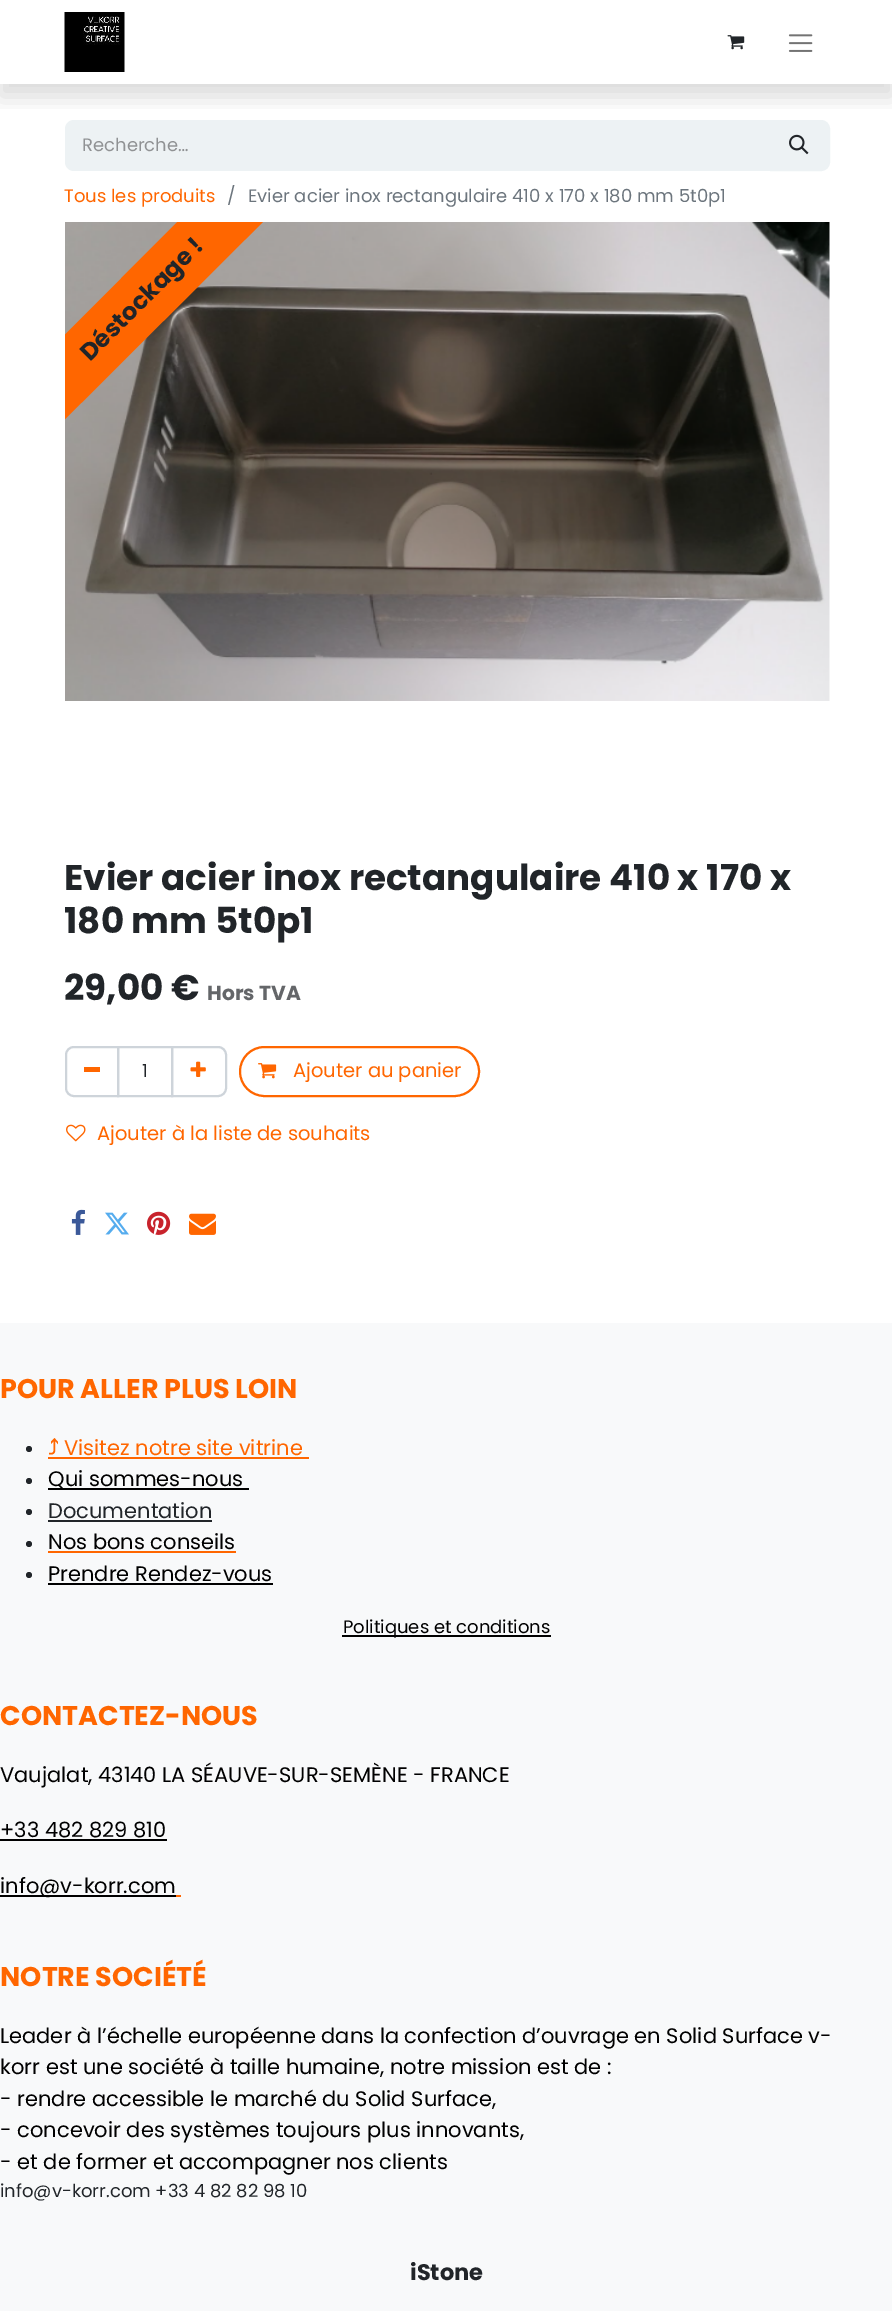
%!PS-Adobe-3.0
%%BoundingBox: 0 0 892 2311
%%LanguageLevel: 3
%%Pages: 1
%%EndComments
%%BeginProlog
/setink { 3 { 255 div 3 1 roll } repeat setrgbcolor } def
/usefont { [ exch dup neg 0 0 3 -1 roll 0 0 ] selectfont } def
/drawtext { setink usefont moveto show } def
/fillbox { setink rectfill } def
/setalpha { dup .setfillconstantalpha .setstrokeconstantalpha } def
/disc { newpath 0 360 arc closepath } def
/rrect { 5 dict begin { /r /h /w /y /x } { exch def } forall
  x r add y moveto x w add y 2 copy h add r arct x w add y h add x 1 index r arct
  x y h add x y r arct x y 2 copy exch w add exch r arct closepath end } def
/softshadow { 12 dict begin { /a /b /q /h /w /y /x } { exch def } forall gsave /was 0 def
  9 -2 -9 { dup b mul 4 div /e exch def 1 sub .425 mul 2.718 exch exp 1 add a .99 .min exch div /now exch def
    1 1 now sub 1 was sub div sub setalpha /was now def
    w h .min e 2 mul add 0 gt { x e sub y e sub w e 2 mul add h e 2 mul add
      q e add b .6 mul add w h .min 2 div e add .min 0 .max rrect fill } if } for grestore end } def
/drawimage { 5 dict begin { /h /w /y /x /name } { exch def } forall
  gsave x y translate w h scale
  w h 8 [w 0 0 h 0 0] name (r) file false 3 colorimage grestore end } def
%%EndProlog
%%BeginSetup
<< /PageSize [892 2311] /PageUsesTransparency true >> setpagedevice
%%EndSetup
%%Page: 1 1
0 .pushpdf14devicefilter
0 2311 translate 1 -1 scale
4 setmiterlimit
0 0 892 2311 255 255 255 fillbox
237 242 244 setink
74 120 moveto 771 120 lineto 771 171 lineto 74 171 lineto 69 171 65 167 65 162 curveto 65 129 lineto 65 124 69 120 74 120 curveto closepath fill
771 121 moveto 821 121 lineto 825.5 121 829 124.5 829 129 curveto 829 162 lineto 829 166.5 825.5 170 821 170 curveto 771 170 lineto closepath gsave fill grestore
2 setlinewidth
stroke
gsave
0 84 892 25 rectclip
0 0 0 setink
0 12 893 84 0 12 0.15 softshadow
grestore
(assets/img1.rgb) 64 12 61 60 drawimage
(assets/img2.rgb) 727 35 18 15 drawimage
(assets/img3.rgb) 788 34 25 18 drawimage
(Recherche…) 82 151 /Poppins-Regular 18 144 146 148 drawtext
(assets/img4.rgb) 789 134 20 21 drawimage
(Tous les produits) 64 202 /Poppins-Regular 18 255 102 0 drawtext
(/) 227 202 /Poppins-Regular 18 108 117 125 drawtext
(Evier acier inox rectangulaire 410 x 170 x 180 mm 5t0p1) 248 202 /Poppins-Regular 18 108 117 125 drawtext
(assets/img5.rgb) 65 222 765 479 drawimage
gsave
65 222 765 600 rectclip
255 102 0 setink
-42 442 moveto 284 115 lineto 327 158 lineto 0 484 lineto closepath fill
grestore
/Poppins-Bold 24 usefont
33 37 41 setink
gsave 90 362 translate -45 rotate 0 0 moveto (Déstockage !) show grestore
(Evier acier inox rectangulaire 410 x 170 x) 64 890 /Poppins-Bold 35.75 33 37 41 drawtext
(180 mm 5t0p1) 64 933 /Poppins-Bold 35.75 33 37 41 drawtext
(29,00 €) 64 1000 /Poppins-Bold 35.75 33 37 41 drawtext
(Hors TVA) 207 1000 /Poppins-Bold 20.25 100 102 105 drawtext
206 212 218 setink
118 1047 54 49 rectstroke
74 1047 moveto 118 1047 lineto 118 1096 lineto 74 1096 lineto 69.5 1096 66 1092.5 66 1088 curveto 66 1055 lineto 66 1050.5 69.5 1047 74 1047 curveto closepath stroke
84 1067 16 5 255 102 0 fillbox
(1) 142 1077 /Poppins-Regular 18 33 37 41 drawtext
206 212 218 setink
172 1047 moveto 218 1047 lineto 222.5 1047 226 1050.5 226 1055 curveto 226 1088 lineto 226 1092.5 222.5 1096 218 1096 curveto 172 1096 lineto closepath stroke
(assets/img6.rgb) 190 1061 16 16 drawimage
255 102 0 setink
240 1047 239 49 24.5 rrect stroke
(assets/img7.rgb) 258 1063 19 16 drawimage
(Ajouter au panier) 293 1077 /Poppins-Regular 19.5 255 102 0 drawtext
(assets/img8.rgb) 66 1124 20 18 drawimage
(Ajouter à la liste de souhaits) 97 1140 /Poppins-Regular 19.5 255 102 0 drawtext
(assets/img9.rgb) 71 1209 14 26 drawimage
(assets/img10.rgb) 105 1212 24 23 drawimage
(assets/img11.rgb) 147 1211 24 24 drawimage
(assets/img12.rgb) 189 1213 27 22 drawimage
0 1323 892 988 248 249 250 fillbox
(POUR ALLER PLUS LOIN) 0 1398 /Poppins-Bold 27 255 102 0 drawtext
33 37 41 setink
29 1449 3 disc fill
(⤴) 48 1455 /IPAGothic-Bold 21 255 102 0 drawtext
(Visitez notre site vitrine) 64 1455 /Poppins-Regular 21 255 102 0 drawtext
48 1457 261 2 255 102 0 fillbox
33 37 41 setink
29 1481 3 disc fill
48 1488 201 2 0 0 0 fillbox
(Qui sommes-nous) 48 1486 /Poppins-Regular 21 0 0 0 drawtext
33 37 41 setink
29 1512 3 disc fill
(Documentation) 48 1518 /Poppins-Regular 21 33 37 41 drawtext
48 1520 164 2 33 37 41 fillbox
29 1544 3 disc fill
(Nos bons conseils) 48 1549 /Poppins-Regular 21 0 0 0 drawtext
48 1551 188 2 255 102 0 fillbox
33 37 41 setink
29 1575 3 disc fill
(Prendre Rendez-vous) 48 1581 /Poppins-Regular 21 0 0 0 drawtext
48 1583 225 2 0 0 0 fillbox
342 1635 209 2 0 0 0 fillbox
(Politiques et conditions) 343 1633 /Poppins-Regular 18 0 0 0 drawtext
(CONTACTEZ-NOUS) 0 1725 /Poppins-Bold 27 255 102 0 drawtext
(Vaujalat, 43140 LA SÉAUVE-SUR-SEMÈNE - FRANCE) 0 1782 /Poppins-Regular 21 0 0 0 drawtext
(+33 482 829 810) 0 1837 /Poppins-Regular 21 0 0 0 drawtext
0 1839 167 2 0 0 0 fillbox
0 1895 176 2 0 0 0 fillbox
(info@v-korr.com) 0 1893 /Poppins-Regular 21 0 0 0 drawtext
176 1895 5 2 255 102 0 fillbox
(NOTRE SOCIÉTÉ) 0 1986 /Poppins-Bold 27 255 102 0 drawtext
(Leader à l’échelle européenne dans la confection d’ouvrage en Solid Surface v-) 0 2043 /Poppins-Regular 21 0 0 0 drawtext
(korr est une société à taille humaine, notre mission est de :) 0 2074 /Poppins-Regular 21 0 0 0 drawtext
(- rendre accessible le marché du Solid Surface,) 0 2106 /Poppins-Regular 21 0 0 0 drawtext
(- concevoir des systèmes toujours plus innovants,) 0 2137 /Poppins-Regular 21 0 0 0 drawtext
(- et de former et accompagner nos clients) 0 2169 /Poppins-Regular 21 0 0 0 drawtext
(info@v-korr.com +33 4 82 82 98 10) 0 2197 /Poppins-Regular 18 33 37 41 drawtext
(iStone) 410 2280 /Poppins-Bold 22.5 33 37 41 drawtext
.poppdf14devicefilter showpage
%%EOF
